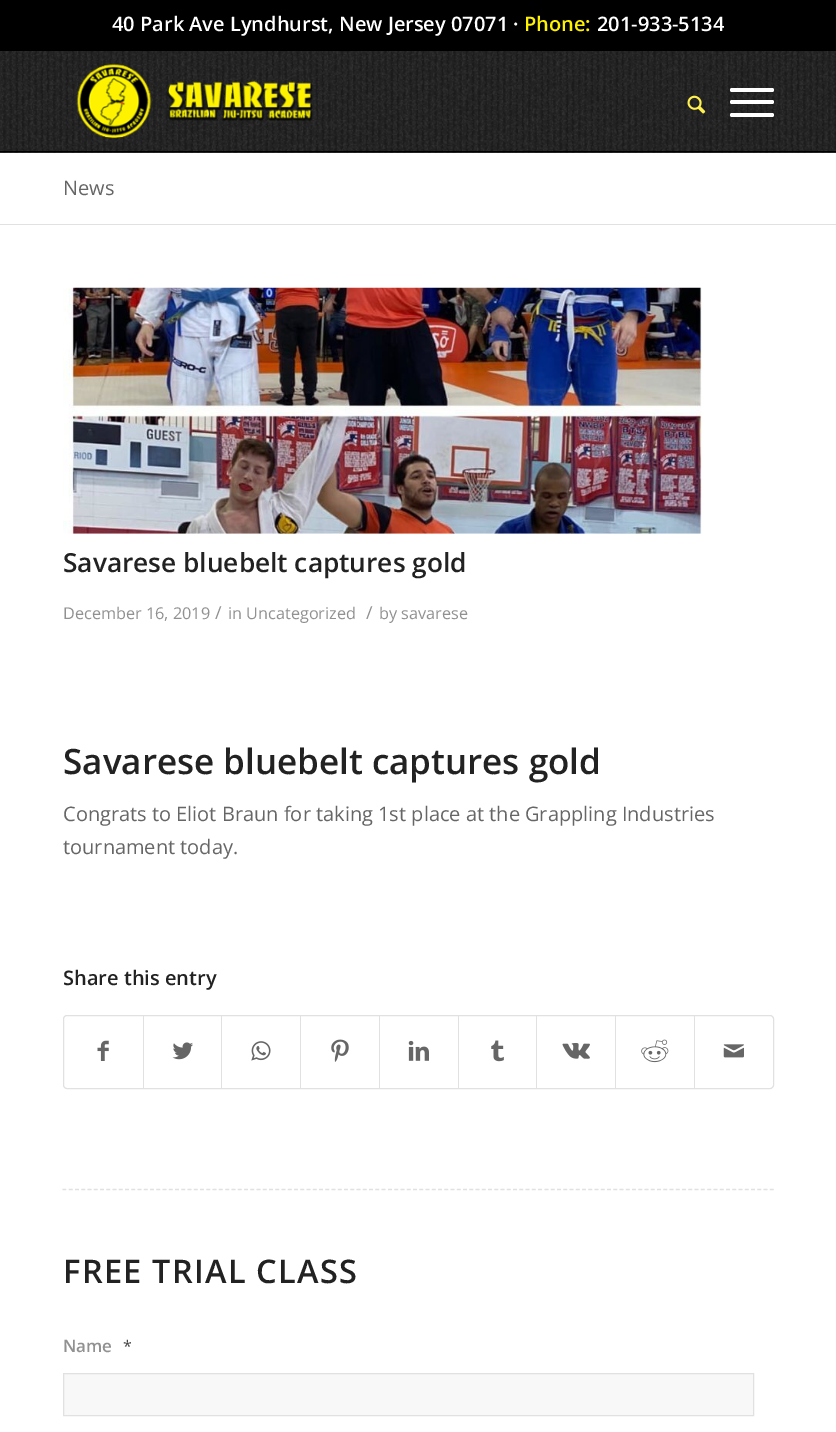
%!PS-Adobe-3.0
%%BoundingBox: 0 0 836 1432
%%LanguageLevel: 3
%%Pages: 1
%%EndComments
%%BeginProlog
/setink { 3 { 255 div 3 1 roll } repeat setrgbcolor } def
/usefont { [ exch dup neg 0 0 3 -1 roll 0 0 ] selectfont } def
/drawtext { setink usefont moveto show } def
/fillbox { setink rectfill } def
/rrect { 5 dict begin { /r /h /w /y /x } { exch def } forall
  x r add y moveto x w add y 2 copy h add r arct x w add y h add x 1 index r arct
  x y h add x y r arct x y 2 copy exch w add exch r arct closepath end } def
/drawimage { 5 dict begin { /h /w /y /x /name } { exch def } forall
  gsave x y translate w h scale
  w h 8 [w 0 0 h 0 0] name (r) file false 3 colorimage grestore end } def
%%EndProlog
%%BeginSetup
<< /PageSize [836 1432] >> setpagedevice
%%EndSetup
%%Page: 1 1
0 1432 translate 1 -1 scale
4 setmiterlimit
0 0 836 1432 255 255 255 fillbox
0 0 836 51 0 0 0 fillbox
(40 Park Ave Lyndhurst, New Jersey 07071 ·) 112 31 /OpenSans-SemiBold 20 255 255 255 drawtext
(Phone:) 524 31 /OpenSans-SemiBold 20 255 242 0 drawtext
(201-933-5134) 597 31 /OpenSans-SemiBold 20 255 255 255 drawtext
0 51 836 102 31 31 31 fillbox
(assets/img1.rgb) 0 51 836 102 drawimage
0 151 836 1 0 0 0 fillbox
(assets/img2.rgb) 76 64 237 74 drawimage
(assets/img3.rgb) 687 95 19 19 drawimage
255 255 255 setink
730 100 44 4 2 rrect fill
730 88 44 4 2 rrect fill
730 113 44 4 2 rrect fill
(News) 63 195 /OpenSans-Regular 20 102 102 102 drawtext
0 224 836 1 225 225 225 fillbox
(assets/img4.rgb) 63 287 639 247 drawimage
(Savarese bluebelt captures gold) 63 572 /OpenSans-SemiBold 26.25 34 34 34 drawtext
(December 16, 2019) 63 619 /OpenSans-Regular 16.25 145 145 145 drawtext
(/) 215 619 /OpenSans-Regular 18 145 145 145 drawtext
(in Uncategorized) 228 619 /OpenSans-Regular 16.25 145 145 145 drawtext
(/) 366 619 /OpenSans-Regular 18 145 145 145 drawtext
(by savarese) 379 619 /OpenSans-Regular 16.25 145 145 145 drawtext
(Savarese bluebelt captures gold) 63 774 /OpenSans-SemiBold 35 34 34 34 drawtext
(Congrats to Eliot Braun for taking 1st place at the Grappling Industries) 63 821 /OpenSans-Regular 20 102 102 102 drawtext
(tournament today.) 63 854 /OpenSans-Regular 20 102 102 102 drawtext
(Share this entry) 63 985 /OpenSans-SemiBold 20 34 34 34 drawtext
225 225 225 setink
63.5 1015.5 710 73 3.5 rrect stroke
(assets/img5.rgb) 97 1040 12 21 drawimage
143 1016 1 72 225 225 225 fillbox
(assets/img6.rgb) 172 1042 21 18 drawimage
221 1016 1 72 225 225 225 fillbox
(assets/img7.rgb) 251 1041 20 20 drawimage
300 1016 1 72 225 225 225 fillbox
(assets/img8.rgb) 331 1039 18 23 drawimage
379 1016 1 72 225 225 225 fillbox
(assets/img9.rgb) 408 1040 21 21 drawimage
458 1016 1 72 225 225 225 fillbox
(assets/img10.rgb) 491 1040 13 22 drawimage
536 1016 1 72 225 225 225 fillbox
(assets/img11.rgb) 562 1043 28 16 drawimage
615 1016 1 72 225 225 225 fillbox
(assets/img12.rgb) 641 1039 28 24 drawimage
694 1016 1 72 225 225 225 fillbox
(assets/img13.rgb) 723 1044 21 14 drawimage
1.2 setlinewidth
[3.75 2.51] 0 setdash
62.5 1189.5 moveto 774 1189.5 lineto stroke
/OpenSans-SemiBold 32.5 usefont
34 34 34 setink
63 1283 moveto 1.25 0 (FREE TRIAL CLASS) ashow
(Name) 63 1352 /OpenSans-SemiBold 17 145 145 145 drawtext
(*) 123 1352 /OpenSans-Regular 16 68 68 68 drawtext
248 248 248 setink
63.5 1373.5 moveto 753.5 1373.5 lineto 753.5 1415.5 lineto 63.5 1415.5 lineto closepath gsave fill grestore
225 225 225 setink
1 setlinewidth
[] 0 setdash
stroke
showpage
%%EOF
